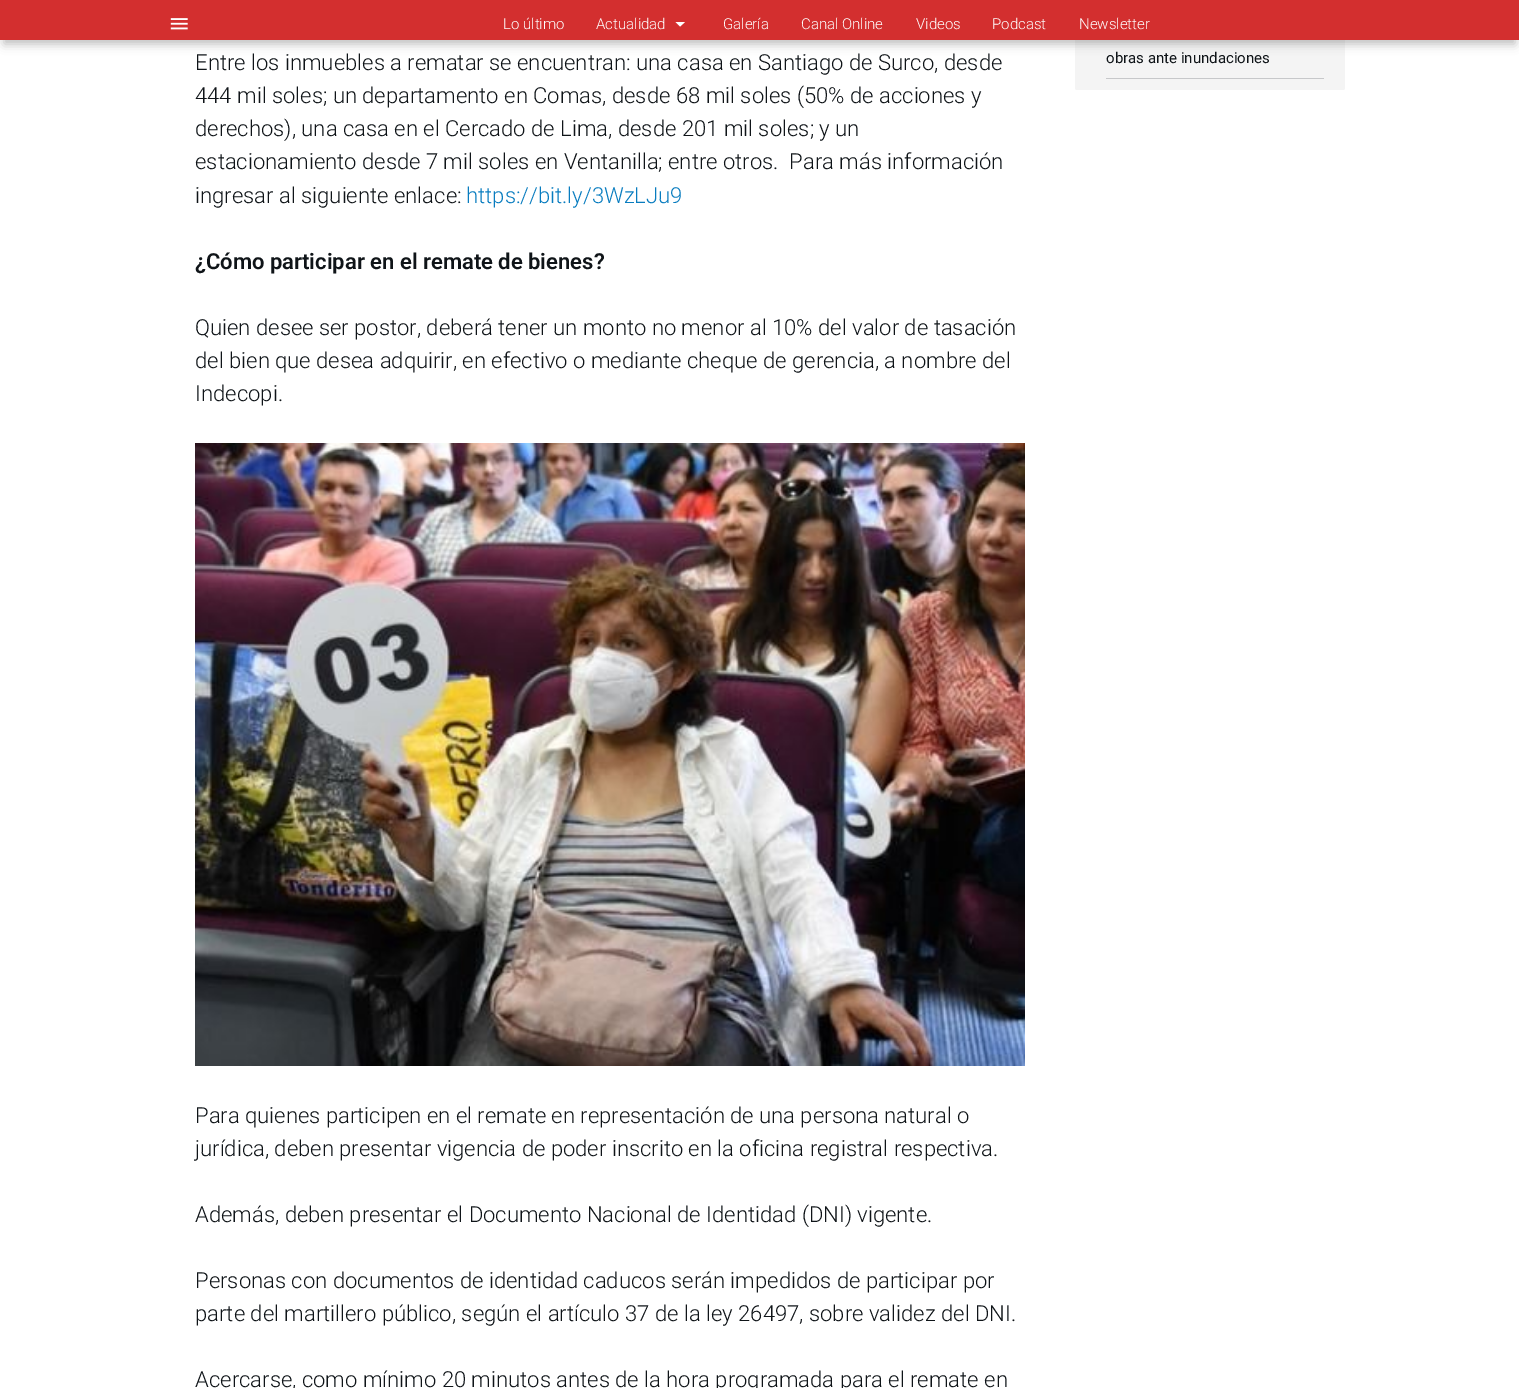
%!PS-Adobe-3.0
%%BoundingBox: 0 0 1519 1388
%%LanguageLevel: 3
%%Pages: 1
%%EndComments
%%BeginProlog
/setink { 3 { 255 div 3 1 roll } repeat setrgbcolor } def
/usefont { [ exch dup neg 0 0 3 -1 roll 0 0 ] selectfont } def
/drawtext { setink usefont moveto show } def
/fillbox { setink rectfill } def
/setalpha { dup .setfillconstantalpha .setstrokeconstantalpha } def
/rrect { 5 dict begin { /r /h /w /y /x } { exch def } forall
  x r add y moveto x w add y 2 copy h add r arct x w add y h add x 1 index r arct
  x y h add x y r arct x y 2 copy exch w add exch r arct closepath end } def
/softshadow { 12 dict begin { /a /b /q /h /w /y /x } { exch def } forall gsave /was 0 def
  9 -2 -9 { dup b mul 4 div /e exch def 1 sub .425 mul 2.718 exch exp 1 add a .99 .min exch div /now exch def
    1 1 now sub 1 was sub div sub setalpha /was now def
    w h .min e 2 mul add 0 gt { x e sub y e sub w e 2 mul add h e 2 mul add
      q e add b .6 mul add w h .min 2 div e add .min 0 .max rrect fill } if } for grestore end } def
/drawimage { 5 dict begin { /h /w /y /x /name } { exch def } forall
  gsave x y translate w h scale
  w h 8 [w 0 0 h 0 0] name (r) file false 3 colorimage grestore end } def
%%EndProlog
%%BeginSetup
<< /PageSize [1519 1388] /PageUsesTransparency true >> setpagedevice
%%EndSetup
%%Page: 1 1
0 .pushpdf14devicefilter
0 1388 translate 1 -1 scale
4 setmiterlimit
0 0 1519 1388 255 255 255 fillbox
244 244 244 setink
1075 -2 270 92 2 rrect fill
50 50 50 setink
4 12 1511 32 0 5 0.33 softshadow
0 0 1519 40 211 47 47 fillbox
(assets/img1.rgb) 170 18 18 12 drawimage
(Lo último) 503 29 /Roboto-Light 15 255 255 255 drawtext
(Actualidad) 596 29 /Roboto-Light 15 255 255 255 drawtext
675.5 22 moveto 685 22 lineto 680 26.5 lineto closepath fill
(Galería) 723 29 /Roboto-Light 15 255 255 255 drawtext
(Canal Online) 801 29 /Roboto-Light 15 255 255 255 drawtext
(Videos) 916 29 /Roboto-Light 15 255 255 255 drawtext
(Podcast) 992 29 /Roboto-Light 15 255 255 255 drawtext
(Newsletter) 1079 29 /Roboto-Light 15 255 255 255 drawtext
(Entre los inmuebles a rematar se encuentran: una casa en Santiago de Surco, desde) 195 70 /Roboto-Light 22.05 15 20 24 drawtext
(444 mil soles; un departamento en Comas, desde 68 mil soles \(50% de acciones y) 195 103 /Roboto-Light 22.05 15 20 24 drawtext
(derechos\), una casa en el Cercado de Lima, desde 201 mil soles; y un) 195 136 /Roboto-Light 22.05 15 20 24 drawtext
(estacionamiento desde 7 mil soles en Ventanilla; entre otros.  Para más información) 195 169 /Roboto-Light 22.05 15 20 24 drawtext
(ingresar al siguiente enlace:) 195 203 /Roboto-Light 22.05 15 20 24 drawtext
(https://bit.ly/3WzLJu9) 466 203 /Roboto-Light 22.05 8 124 191 drawtext
(¿Cómo participar en el remate de bienes?) 195 269 /Roboto-SemiBold 22.05 15 20 24 drawtext
(Quien desee ser postor, deberá tener un monto no menor al 10% del valor de tasación) 195 335 /Roboto-Light 22.05 15 20 24 drawtext
(del bien que desea adquirir, en efectivo o mediante cheque de gerencia, a nombre del) 195 368 /Roboto-Light 22.05 15 20 24 drawtext
(Indecopi.) 195 401 /Roboto-Light 22.05 15 20 24 drawtext
(assets/img2.rgb) 195 443 830 623 drawimage
(Para quienes participen en el remate en representación de una persona natural o) 195 1123 /Roboto-Light 22.05 15 20 24 drawtext
(jurídica, deben presentar vigencia de poder inscrito en la oficina registral respectiva.) 195 1156 /Roboto-Light 22.05 15 20 24 drawtext
(Además, deben presentar el Documento Nacional de Identidad \(DNI\) vigente.) 195 1222 /Roboto-Light 22.05 15 20 24 drawtext
(Personas con documentos de identidad caducos serán impedidos de participar por) 195 1288 /Roboto-Light 22.05 15 20 24 drawtext
(parte del martillero público, según el artículo 37 de la ley 26497, sobre validez del DNI.) 195 1321 /Roboto-Light 22.05 15 20 24 drawtext
(Acercarse, como mínimo 20 minutos antes de la hora programada para el remate en) 195 1387 /Roboto-Light 22.05 15 20 24 drawtext
(obras ante inundaciones) 1106 63 /Roboto-Regular 15 15 20 24 drawtext
1106 78 218 1 199 200 202 fillbox
.poppdf14devicefilter showpage
%%EOF
